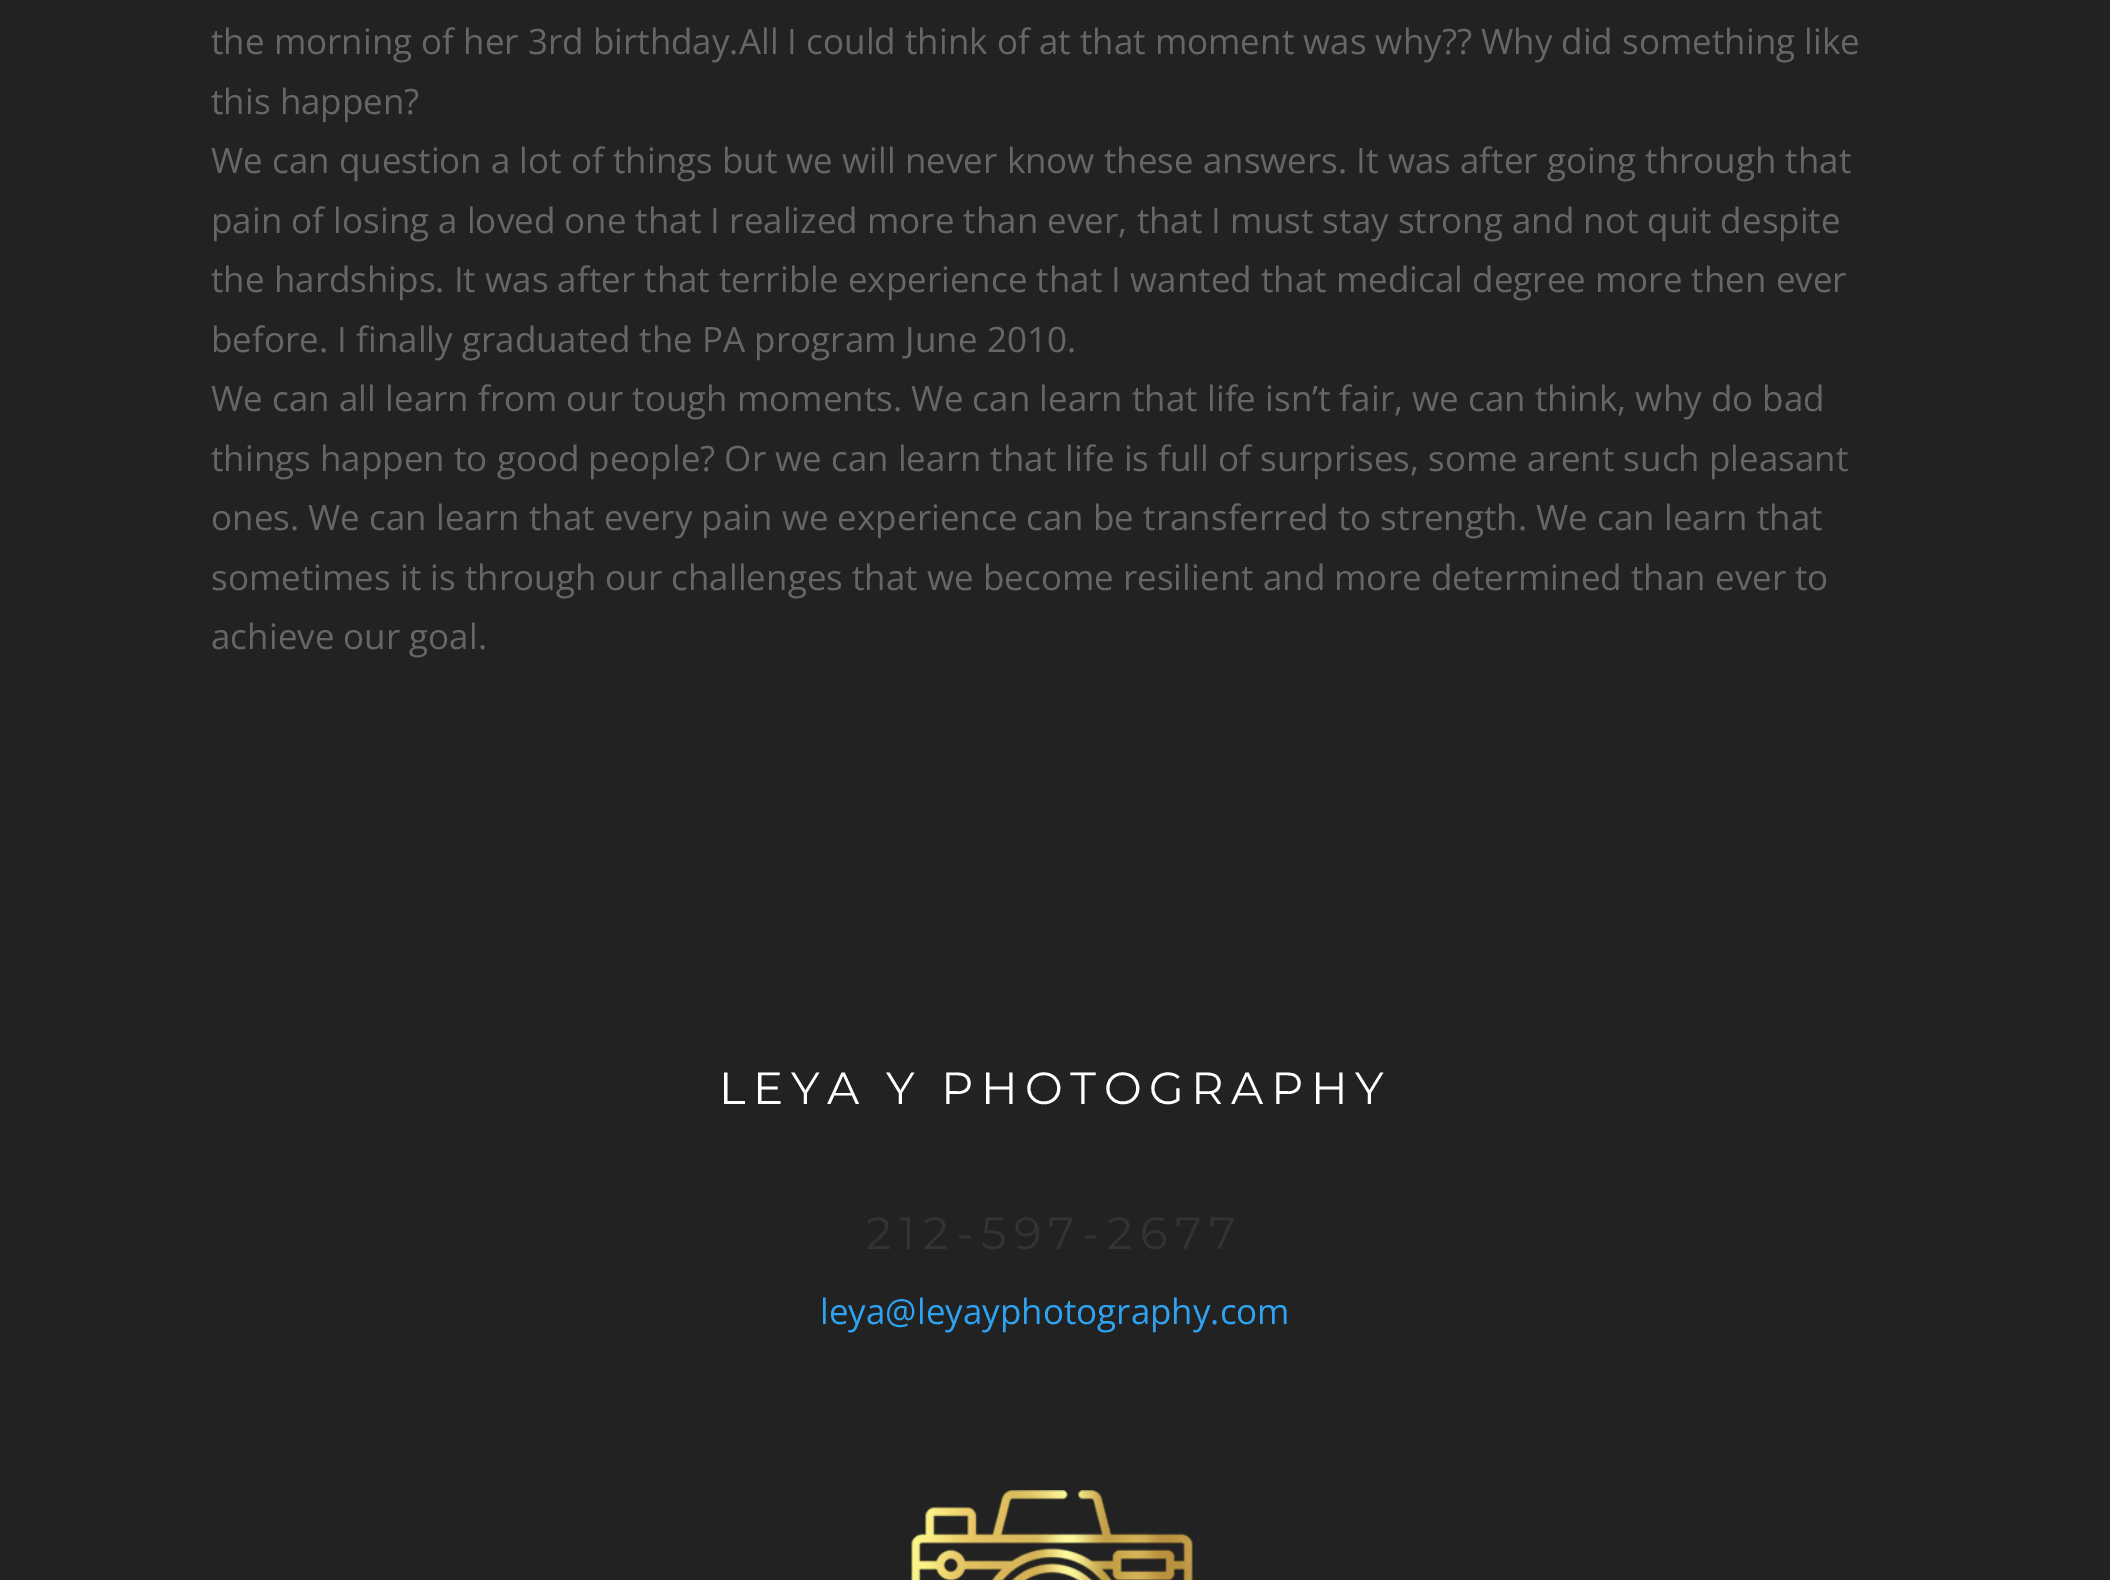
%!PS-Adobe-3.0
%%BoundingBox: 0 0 2110 1580
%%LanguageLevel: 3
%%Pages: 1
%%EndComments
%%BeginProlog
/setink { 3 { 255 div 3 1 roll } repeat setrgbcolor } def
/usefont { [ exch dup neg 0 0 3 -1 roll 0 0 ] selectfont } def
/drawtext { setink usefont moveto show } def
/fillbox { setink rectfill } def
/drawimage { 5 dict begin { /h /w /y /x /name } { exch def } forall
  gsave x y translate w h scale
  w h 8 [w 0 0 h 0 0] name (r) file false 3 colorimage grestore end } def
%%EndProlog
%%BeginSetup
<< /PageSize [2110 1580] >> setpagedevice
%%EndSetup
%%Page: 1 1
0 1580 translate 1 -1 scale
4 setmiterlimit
0 0 2110 1580 34 34 34 fillbox
(the morning of her 3rd birthday.All I could think of at that moment was why?? Why did something like) 211 54 /OpenSans-Regular 35 102 102 102 drawtext
(this happen?) 211 114 /OpenSans-Regular 35 102 102 102 drawtext
(We can question a lot of things but we will never know these answers. It was after going through that) 211 173 /OpenSans-Regular 35 102 102 102 drawtext
(pain of losing a loved one that I realized more than ever, that I must stay strong and not quit despite) 211 233 /OpenSans-Regular 35 102 102 102 drawtext
(the hardships. It was after that terrible experience that I wanted that medical degree more then ever) 211 292 /OpenSans-Regular 35 102 102 102 drawtext
(before. I finally graduated the PA program June 2010.) 211 352 /OpenSans-Regular 35 102 102 102 drawtext
(We can all learn from our tough moments. We can learn that life isn’t fair, we can think, why do bad) 211 411 /OpenSans-Regular 35 102 102 102 drawtext
(things happen to good people? Or we can learn that life is full of surprises, some arent such pleasant) 211 471 /OpenSans-Regular 35 102 102 102 drawtext
(ones. We can learn that every pain we experience can be transferred to strength. We can learn that) 211 530 /OpenSans-Regular 35 102 102 102 drawtext
(sometimes it is through our challenges that we become resilient and more determined than ever to) 211 590 /OpenSans-Regular 35 102 102 102 drawtext
(achieve our goal.) 211 649 /OpenSans-Regular 35 102 102 102 drawtext
/Montserrat-Thin 45 usefont
255 255 255 setink
719 1104 moveto 7.5 0 (LEYA Y PHOTOGRAPHY) ashow
51 51 51 setink
866 1249 moveto 7.5 0 (212-597-2677) ashow
(leya@leyayphotography.com) 820 1324 /OpenSans-Regular 35 46 163 242 drawtext
(assets/img1.rgb) 911 1490 282 90 drawimage
showpage
%%EOF
